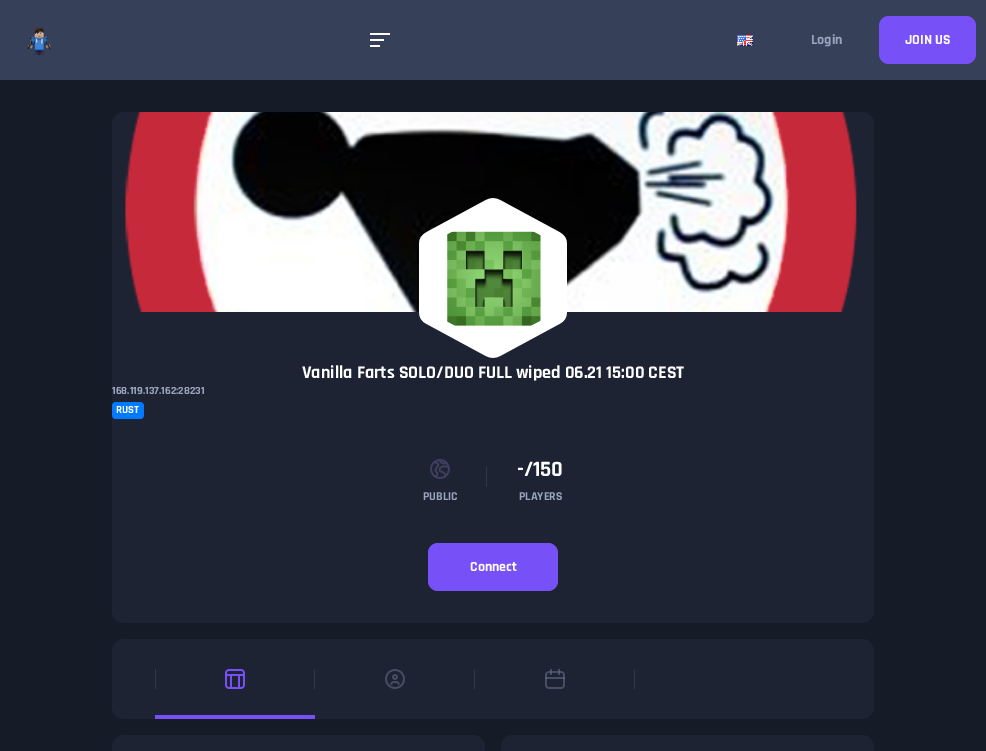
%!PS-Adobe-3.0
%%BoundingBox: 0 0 986 751
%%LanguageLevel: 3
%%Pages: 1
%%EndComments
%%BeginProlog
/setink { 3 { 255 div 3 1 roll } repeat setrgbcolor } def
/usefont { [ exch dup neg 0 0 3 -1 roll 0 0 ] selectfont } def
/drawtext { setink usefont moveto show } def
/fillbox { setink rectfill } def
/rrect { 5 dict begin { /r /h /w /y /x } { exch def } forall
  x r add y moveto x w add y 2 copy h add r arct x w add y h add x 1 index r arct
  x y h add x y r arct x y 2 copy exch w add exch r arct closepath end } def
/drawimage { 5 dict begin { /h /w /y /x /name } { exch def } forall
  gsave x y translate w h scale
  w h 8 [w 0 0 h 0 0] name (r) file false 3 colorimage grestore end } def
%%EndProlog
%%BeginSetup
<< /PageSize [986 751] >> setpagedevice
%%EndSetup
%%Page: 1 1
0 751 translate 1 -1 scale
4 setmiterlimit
0 0 986 751 22 27 40 fillbox
0 0 986 80 55 64 89 fillbox
(assets/img1.rgb) 27 28 24 27 drawimage
370 33 20 2 255 255 255 fillbox
370 39 14 2 255 255 255 fillbox
370 45 10 2 255 255 255 fillbox
(assets/img2.rgb) 737 35 16 11 drawimage
(Login) 811 44 /Rajdhani-Bold 14 154 164 191 drawtext
119 80 248 setink
879 16 97 48 10 rrect fill
(JOIN US) 905 44 /Rajdhani-Bold 14 255 255 255 drawtext
29 35 51 setink
112 112 762 511 12 rrect fill
(assets/img3.rgb) 125 112 732 200 drawimage
(assets/img4.rgb) 419 198 148 160 drawimage
(assets/img5.rgb) 447 231 94 95 drawimage
(Vanilla Farts SOLO/DUO FULL wiped 06.21 15:00 CEST) 302 378 /Rajdhani-Bold 18 255 255 255 drawtext
(168.119.137.162:28231) 112 394 /Rajdhani-Bold 11 154 164 191 drawtext
0 123 255 setink
112 402 32 17 4 rrect fill
(RUST) 116 413 /Rajdhani-Bold 11 248 249 250 drawtext
(assets/img6.rgb) 430 459 20 20 drawimage
486 467 1 20 47 55 73 fillbox
(PUBLIC) 423 500 /Rajdhani-Bold 12 154 164 191 drawtext
(-/150) 517 476 /Rajdhani-Bold 22 255 255 255 drawtext
(PLAYERS) 519 500 /Rajdhani-Bold 12 154 164 191 drawtext
119 80 248 setink
428 543 130 48 10 rrect fill
(Connect) 470 571 /Rajdhani-Bold 14 255 255 255 drawtext
29 35 51 setink
112 639 762 80 12 rrect fill
155 715 160 4 119 80 248 fillbox
155 669 1 20 47 55 73 fillbox
(assets/img7.rgb) 225 669 20 20 drawimage
314 669 1 20 47 55 73 fillbox
(assets/img8.rgb) 385 669 20 20 drawimage
474 669 1 20 47 55 73 fillbox
(assets/img9.rgb) 545 669 20 20 drawimage
634 669 1 20 47 55 73 fillbox
29 35 51 setink
112 735 373 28 12 rrect fill
501 735 373 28 12 rrect fill
showpage
%%EOF
